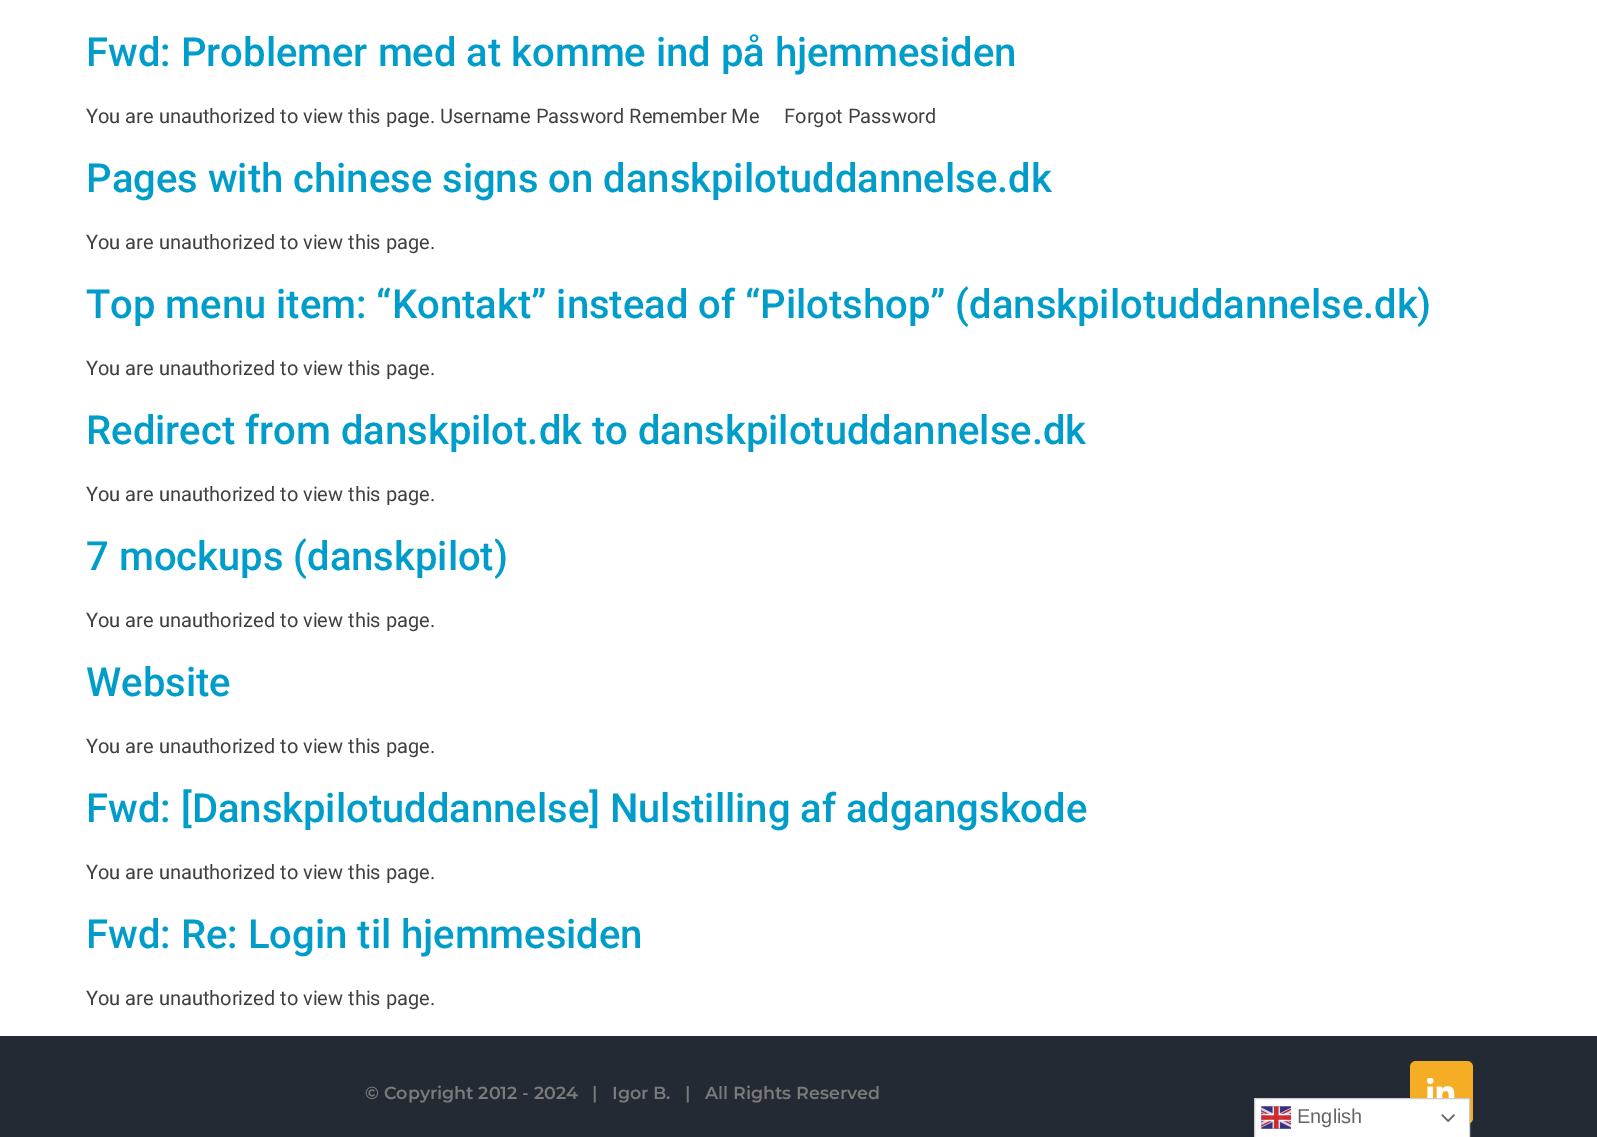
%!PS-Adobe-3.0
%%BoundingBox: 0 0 1597 1137
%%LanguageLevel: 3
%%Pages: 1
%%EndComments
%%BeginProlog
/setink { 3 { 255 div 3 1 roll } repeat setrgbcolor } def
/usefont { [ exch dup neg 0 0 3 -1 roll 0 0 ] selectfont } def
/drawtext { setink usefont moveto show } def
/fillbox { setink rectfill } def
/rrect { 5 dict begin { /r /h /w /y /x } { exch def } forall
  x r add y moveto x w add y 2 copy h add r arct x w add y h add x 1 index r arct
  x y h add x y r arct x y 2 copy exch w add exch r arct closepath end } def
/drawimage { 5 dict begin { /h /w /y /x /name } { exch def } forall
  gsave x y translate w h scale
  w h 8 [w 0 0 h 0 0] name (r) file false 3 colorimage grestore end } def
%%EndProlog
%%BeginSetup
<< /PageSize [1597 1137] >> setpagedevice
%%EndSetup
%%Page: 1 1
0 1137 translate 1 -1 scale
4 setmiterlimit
0 0 1597 1137 255 255 255 fillbox
(Fwd: Problemer med at komme ind på hjemmesiden) 86 66 /Roboto-Medium 40 0 157 202 drawtext
(You are unauthorized to view this page. Username Password Remember Me     Forgot Password) 86 123 /Roboto-Regular 20 64 64 64 drawtext
(Pages with chinese signs on danskpilotuddannelse.dk) 86 192 /Roboto-Medium 40 0 157 202 drawtext
(You are unauthorized to view this page.) 86 249 /Roboto-Regular 20 64 64 64 drawtext
(Top menu item: “Kontakt” instead of “Pilotshop” \(danskpilotuddannelse.dk\)) 86 318 /Roboto-Medium 40 0 157 202 drawtext
(You are unauthorized to view this page.) 86 375 /Roboto-Regular 20 64 64 64 drawtext
(Redirect from danskpilot.dk to danskpilotuddannelse.dk) 86 444 /Roboto-Medium 40 0 157 202 drawtext
(You are unauthorized to view this page.) 86 501 /Roboto-Regular 20 64 64 64 drawtext
(7 mockups \(danskpilot\)) 86 570 /Roboto-Medium 40 0 157 202 drawtext
(You are unauthorized to view this page.) 86 627 /Roboto-Regular 20 64 64 64 drawtext
(Website) 86 696 /Roboto-Medium 40 0 157 202 drawtext
(You are unauthorized to view this page.) 86 753 /Roboto-Regular 20 64 64 64 drawtext
(Fwd: [Danskpilotuddannelse] Nulstilling af adgangskode) 86 822 /Roboto-Medium 40 0 157 202 drawtext
(You are unauthorized to view this page.) 86 879 /Roboto-Regular 20 64 64 64 drawtext
(Fwd: Re: Login til hjemmesiden) 86 948 /Roboto-Medium 40 0 157 202 drawtext
(You are unauthorized to view this page.) 86 1005 /Roboto-Regular 20 64 64 64 drawtext
0 1036 1597 101 35 42 52 fillbox
(© Copyright 2012 - 2024   |   Igor B.   |   All Rights Reserved) 365 1099 /Montserrat-SemiBold 17.5 122 122 122 drawtext
244 173 36 setink
1410 1061 63 63 6 rrect fill
(assets/img1.rgb) 1427 1078 28 20 drawimage
255 255 255 setink
1254.5 1098.5 moveto 1469.5 1098.5 lineto 1469.5 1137.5 lineto 1254.5 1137.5 lineto closepath gsave fill grestore
204 204 204 setink
stroke
(assets/img2.rgb) 1261 1106 30 23 drawimage
(English) 1297 1123 /LiberationSans-Regular 20 102 102 102 drawtext
(assets/img3.rgb) 1441 1114 14 9 drawimage
showpage
%%EOF
